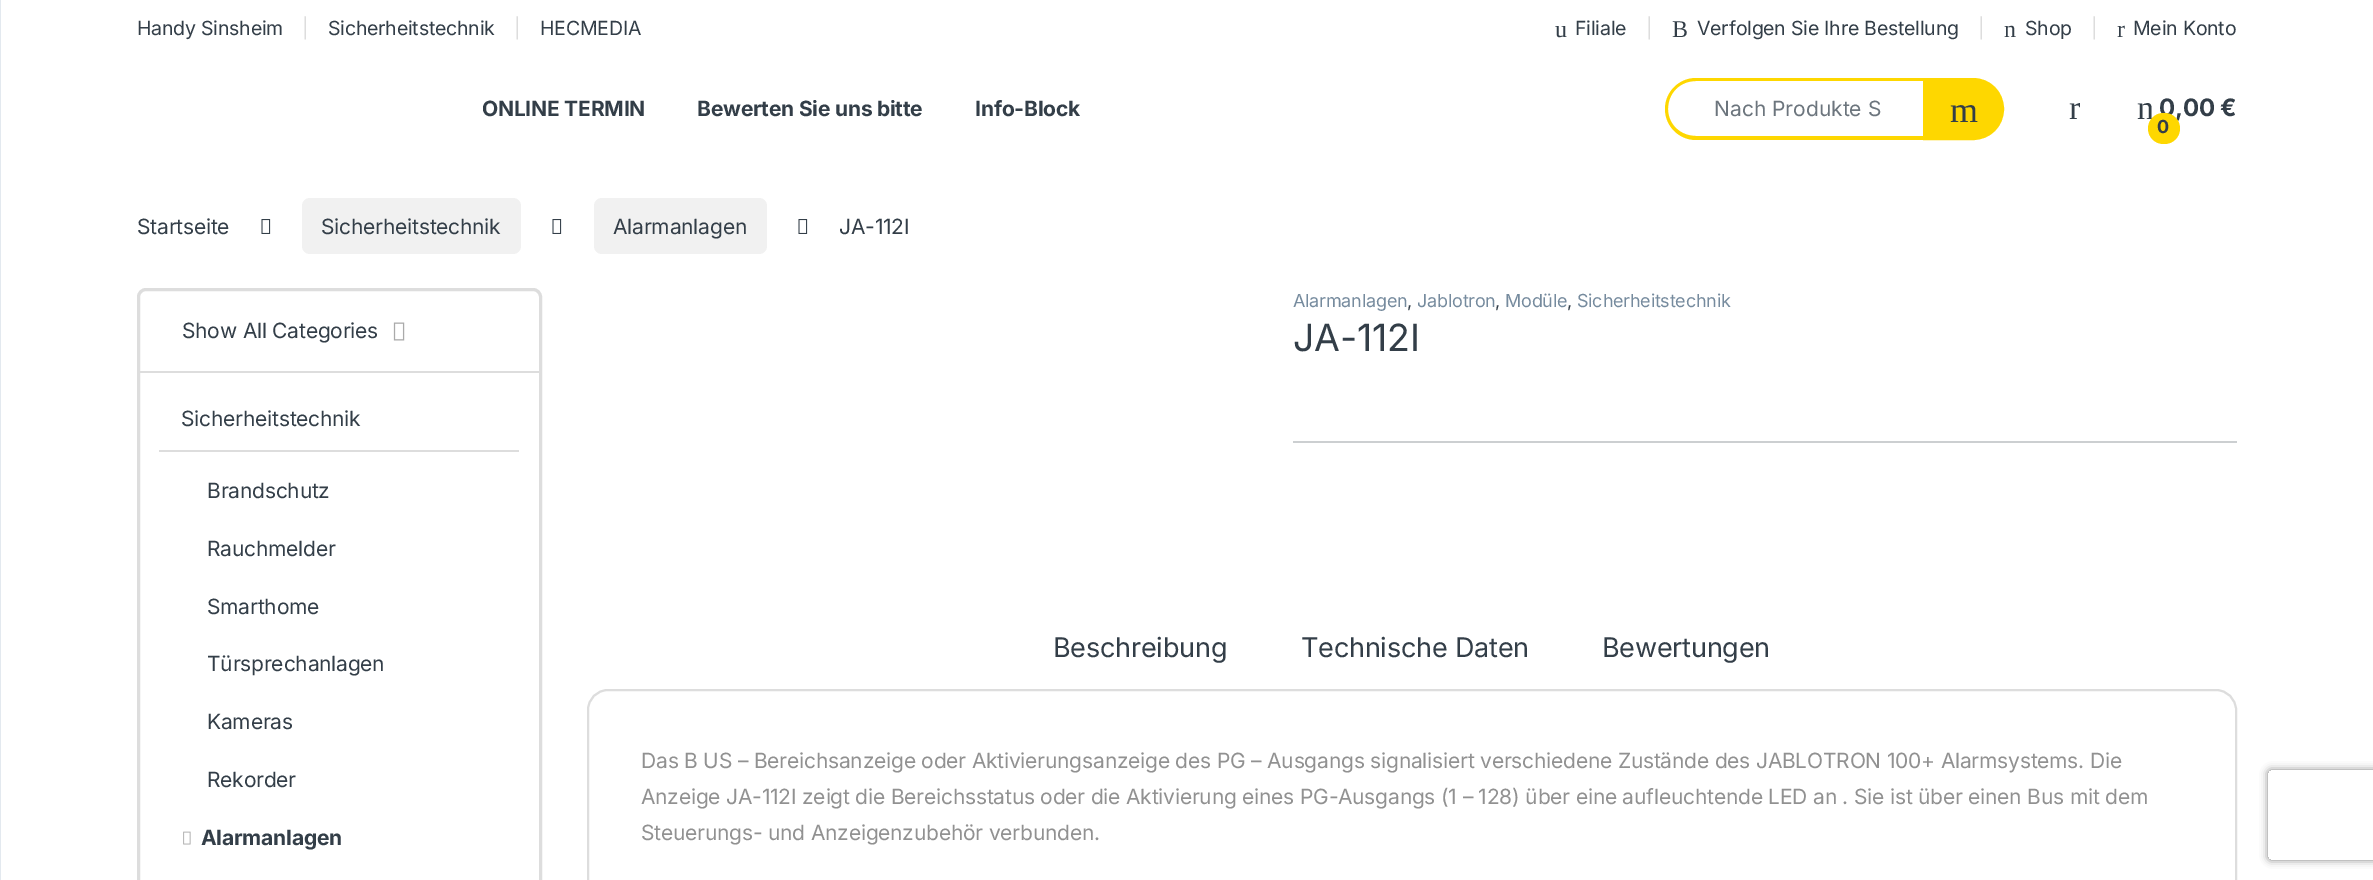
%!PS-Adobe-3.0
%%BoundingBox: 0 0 2373 880
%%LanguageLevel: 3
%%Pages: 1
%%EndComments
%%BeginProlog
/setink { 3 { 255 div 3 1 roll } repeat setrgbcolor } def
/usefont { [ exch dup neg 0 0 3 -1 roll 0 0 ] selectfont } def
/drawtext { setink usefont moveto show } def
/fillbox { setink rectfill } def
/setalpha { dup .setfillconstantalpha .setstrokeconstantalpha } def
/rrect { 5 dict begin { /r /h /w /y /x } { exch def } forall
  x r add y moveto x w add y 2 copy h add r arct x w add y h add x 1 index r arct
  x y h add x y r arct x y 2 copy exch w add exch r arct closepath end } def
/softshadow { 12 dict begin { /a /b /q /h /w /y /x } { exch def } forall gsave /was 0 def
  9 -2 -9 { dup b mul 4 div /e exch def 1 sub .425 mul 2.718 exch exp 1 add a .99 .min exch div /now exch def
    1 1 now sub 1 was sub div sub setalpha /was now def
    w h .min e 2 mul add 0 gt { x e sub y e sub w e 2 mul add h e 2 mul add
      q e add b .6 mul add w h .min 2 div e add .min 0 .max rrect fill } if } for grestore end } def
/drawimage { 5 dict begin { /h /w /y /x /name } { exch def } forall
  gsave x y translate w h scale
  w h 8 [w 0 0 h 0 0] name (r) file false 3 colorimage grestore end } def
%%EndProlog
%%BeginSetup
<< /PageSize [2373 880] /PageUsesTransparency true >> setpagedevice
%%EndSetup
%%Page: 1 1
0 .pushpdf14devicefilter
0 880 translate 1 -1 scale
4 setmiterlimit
0 0 2373 880 255 255 255 fillbox
/Inter-Regular 19.5 usefont
51 62 72 setink
137 35 moveto -0.21 0 (Handy Sinsheim) ashow
221 221 221 setink
302 35 moveto -0.21 0 (|) ashow
51 62 72 setink
328 35 moveto -0.21 0 (Sicherheitstechnik) ashow
221 221 221 setink
514 35 moveto -0.21 0 (|) ashow
51 62 72 setink
540 35 moveto -0.21 0 (HECMEDIA) ashow
/LiberationSerif-Regular 24 usefont
1555 37 moveto -0.21 0 (u) ashow
/Inter-Regular 19.5 usefont
1575 35 moveto -0.21 0 (Filiale) ashow
221 221 221 setink
1646 35 moveto -0.21 0 (|) ashow
/LiberationSerif-Regular 24 usefont
51 62 72 setink
1672 37 moveto -0.21 0 (B) ashow
/Inter-Regular 19.5 usefont
1697 35 moveto -0.21 0 (Verfolgen Sie Ihre Bestellung) ashow
221 221 221 setink
1978 35 moveto -0.21 0 (|) ashow
/LiberationSerif-Regular 24 usefont
51 62 72 setink
2004 37 moveto -0.21 0 (n) ashow
/Inter-Regular 19.5 usefont
2025 35 moveto -0.21 0 (Shop) ashow
221 221 221 setink
2091 35 moveto -0.21 0 (|) ashow
/LiberationSerif-Regular 24 usefont
51 62 72 setink
2117 37 moveto -0.21 0 (r) ashow
/Inter-Regular 19.5 usefont
2133 35 moveto -0.21 0 (Mein Konto) ashow
0 0 1 880 227 233 239 fillbox
/Inter-Bold 21 usefont
51 62 72 setink
482 116 moveto -0.21 0 (ONLINE TERMIN) ashow
697 116 moveto -0.21 0 (Bewerten Sie uns bitte) ashow
975 116 moveto -0.21 0 (Info-Block) ashow
254 215 0 setink
1696 78 moveto 1924 78 lineto 1924 140 lineto 1696 140 lineto 1679 140 1665 126 1665 109 curveto 1665 92 1679 78 1696 78 curveto closepath 1696 81 moveto 1924 81 lineto 1924 136 lineto 1696 136 lineto 1680 136 1668 124 1668 109 curveto 1668 93 1680 81 1696 81 curveto closepath eofill
(Nach Produkte S) 1714 116 /Inter-Regular 21 108 117 125 drawtext
254 215 0 setink
1924.5 79.5 moveto 1973 79.5 lineto 1989.5 79.5 2002.5 92.5 2002.5 109 curveto 2002.5 125.5 1989.5 138.5 1973 138.5 curveto 1924.5 138.5 lineto closepath gsave fill grestore
3 setlinewidth
stroke
(m) 1950 122 /LiberationSerif-Regular 36 51 62 72 drawtext
/LiberationSerif-Regular 34 usefont
2069 119 moveto -0.21 0 (r) ashow
2137 119 moveto -0.21 0 (n) ashow
/Inter-Bold 24 usefont
2159 116 moveto -0.21 0 (0,00 €) ashow
254 215 0 setink
2148 113 32 31 15.5 rrect fill
/Inter-Bold 18 usefont
51 62 72 setink
2157 133 moveto -0.21 0 (0) ashow
/Inter-Regular 21 usefont
137 234 moveto -0.21 0 (Startseite) ashow
(assets/img1.rgb) 261 219 10 15 drawimage
241 241 241 setink
302 198 219 56 8 rrect fill
51 62 72 setink
321 234 moveto -0.21 0 (Sicherheitstechnik) ashow
(assets/img1.rgb) 552 219 10 15 drawimage
241 241 241 setink
594 198 173 56 8 rrect fill
51 62 72 setink
613 234 moveto -0.21 0 (Alarmanlagen) ashow
(assets/img1.rgb) 798 219 10 15 drawimage
839 234 moveto -0.21 0 (JA-112I) ashow
221 221 221 setink
138.5 289.5 402 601 7.5 rrect stroke
140 371 399 2 221 221 221 fillbox
51 62 72 setink
182 338 moveto -0.21 0 (Show All Categories) ashow
(assets/img2.rgb) 393 322 12 19 drawimage
181 426 moveto -0.21 0 (Sicherheitstechnik) ashow
159 450 360 2 221 221 221 fillbox
51 62 72 setink
207 498 moveto -0.21 0 (Brandschutz) ashow
207 556 moveto -0.21 0 (Rauchmelder) ashow
207 614 moveto -0.21 0 (Smarthome) ashow
207 671 moveto -0.21 0 (Türsprechanlagen) ashow
207 729 moveto -0.21 0 (Kameras) ashow
207 787 moveto -0.21 0 (Rekorder) ashow
(assets/img3.rgb) 183 831 8 14 drawimage
/Inter-Bold 21 usefont
201 845 moveto -0.21 0 (Alarmanlagen) ashow
/Inter-Regular 18 usefont
118 139 158 setink
1293 307 moveto -0.21 0 (Alarmanlagen) ashow
51 62 72 setink
1407 307 moveto -0.21 0 (,) ashow
118 139 158 setink
1417 307 moveto -0.21 0 (Jablotron) ashow
51 62 72 setink
1495 307 moveto -0.21 0 (,) ashow
118 139 158 setink
1505 307 moveto -0.21 0 (Modüle) ashow
51 62 72 setink
1567 307 moveto -0.21 0 (,) ashow
118 139 158 setink
1577 307 moveto -0.21 0 (Sicherheitstechnik) ashow
/Inter-Regular 37.5 usefont
51 62 72 setink
1293 351 moveto -0.21 0 (JA-112I) ashow
1293 441 944 2 204 207 209 fillbox
/Inter-Regular 27 usefont
51 62 72 setink
1053 657 moveto -0.21 0 (Beschreibung) ashow
1301 657 moveto -0.21 0 (Technische Daten) ashow
1602 657 moveto -0.21 0 (Bewertungen) ashow
221 221 221 setink
2 setlinewidth
588 690 1648 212 20 rrect stroke
/Inter-Regular 21 usefont
145 145 145 setink
641 768 moveto -0.21 0 (Das B US – Bereichsanzeige oder Aktivierungsanzeige des PG – Ausgangs signalisiert verschiedene Zustände des JABLOTRON 100+ Alarmsystems. Die) ashow
641 804 moveto -0.21 0 (Anzeige JA-112I zeigt die Bereichsstatus oder die Aktivierung eines PG-Ausgangs \(1 – 128\) über eine aufleuchtende LED an . Sie ist über einen Bus mit dem) ashow
641 840 moveto -0.21 0 (Steuerungs- und Anzeigenzubehör verbunden.) ashow
gsave
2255 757 moveto 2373 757 lineto 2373 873 lineto 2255 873 lineto closepath 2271 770 moveto 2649 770 lineto 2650.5 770 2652 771.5 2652 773 curveto 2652 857 lineto 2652 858.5 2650.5 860 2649 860 curveto 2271 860 lineto 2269.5 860 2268 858.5 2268 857 curveto 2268 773 lineto 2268 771.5 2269.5 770 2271 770 curveto closepath eoclip newpath
128 128 128 setink
2268 770 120 90 3 4 1 softshadow
grestore
.poppdf14devicefilter showpage
%%EOF
